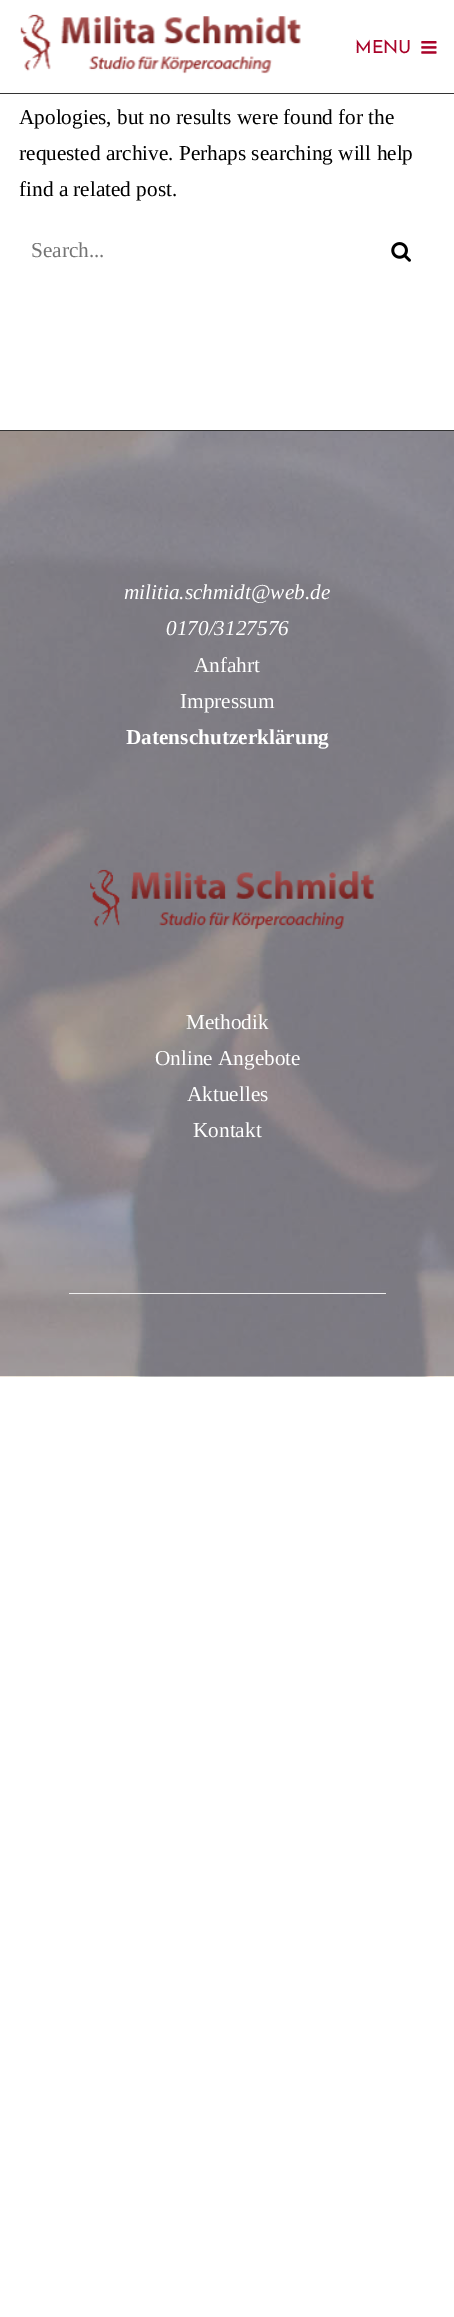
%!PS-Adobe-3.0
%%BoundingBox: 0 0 454 2317
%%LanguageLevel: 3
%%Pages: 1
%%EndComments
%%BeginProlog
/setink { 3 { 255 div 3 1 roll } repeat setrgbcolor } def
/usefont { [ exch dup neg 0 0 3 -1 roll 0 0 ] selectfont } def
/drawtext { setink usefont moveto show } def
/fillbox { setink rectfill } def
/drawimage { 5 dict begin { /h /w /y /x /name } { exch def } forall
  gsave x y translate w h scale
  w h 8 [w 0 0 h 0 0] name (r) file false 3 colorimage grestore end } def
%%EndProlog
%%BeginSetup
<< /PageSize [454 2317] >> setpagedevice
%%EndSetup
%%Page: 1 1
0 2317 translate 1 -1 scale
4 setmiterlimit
0 0 454 2317 255 255 255 fillbox
0 93 454 1 51 51 51 fillbox
(assets/img1.rgb) 20 14 281 60 drawimage
(MENU) 355 53 /JosefinSans-Thin 18 169 3 41 drawtext
(assets/img2.rgb) 421 41 16 13 drawimage
0 430 454 1 51 51 51 fillbox
(Apologies, but no results were found for the) 19 124 /LiberationSerif-Regular 21.25 0 0 0 drawtext
(requested archive. Perhaps searching will help) 19 160 /LiberationSerif-Regular 21.25 0 0 0 drawtext
(find a related post.) 19 196 /LiberationSerif-Regular 21.25 0 0 0 drawtext
(Search...) 31 257 /LiberationSerif-Regular 21.25 117 117 117 drawtext
(assets/img3.rgb) 391 242 20 20 drawimage
(assets/img4.rgb) 0 431 454 946 drawimage
(militia.schmidt@web.de) 124 599 /LiberationSerif-Italic 21.25 255 255 255 drawtext
(0170/3127576) 166 635 /LiberationSerif-Italic 21.25 255 255 255 drawtext
(Anfahrt) 194 672 /LiberationSerif-Regular 21.25 255 255 255 drawtext
(Impressum) 180 708 /LiberationSerif-Regular 21.25 255 255 255 drawtext
(Datenschutzerklärung) 126 744 /LiberationSerif-Bold 21.25 255 255 255 drawtext
(assets/img5.rgb) 90 869 284 60 drawimage
(Methodik) 186 1029 /LiberationSerif-Regular 21.25 255 255 255 drawtext
(Online Angebote) 155 1065 /LiberationSerif-Regular 21.25 255 255 255 drawtext
(Aktuelles) 187 1101 /LiberationSerif-Regular 21.25 255 255 255 drawtext
(Kontakt) 193 1137 /LiberationSerif-Regular 21.25 255 255 255 drawtext
69 1293 317 1 238 238 238 fillbox
showpage
%%EOF
